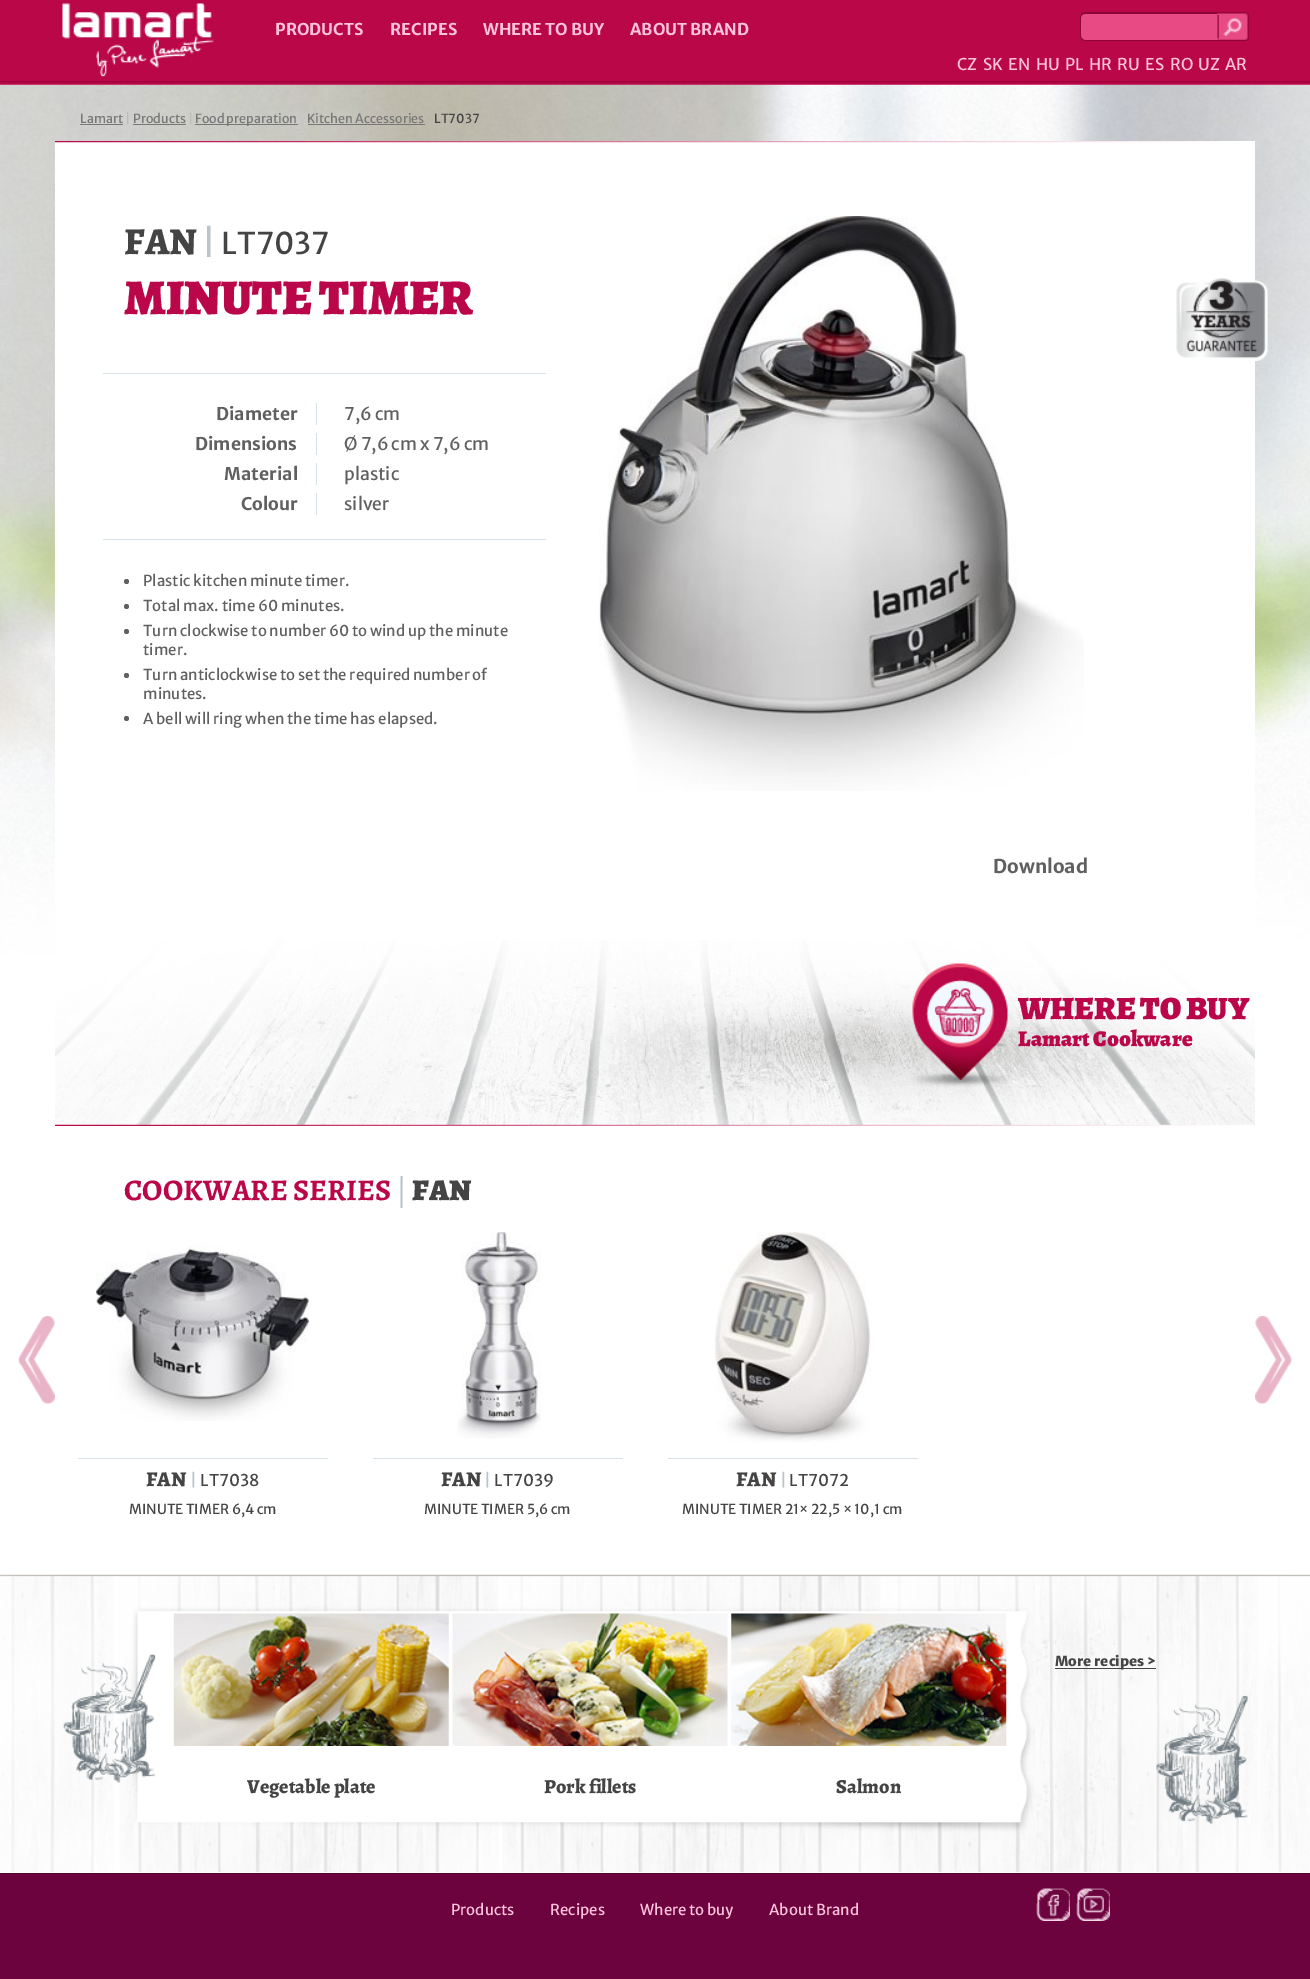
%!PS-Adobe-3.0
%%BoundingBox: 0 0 1310 1979
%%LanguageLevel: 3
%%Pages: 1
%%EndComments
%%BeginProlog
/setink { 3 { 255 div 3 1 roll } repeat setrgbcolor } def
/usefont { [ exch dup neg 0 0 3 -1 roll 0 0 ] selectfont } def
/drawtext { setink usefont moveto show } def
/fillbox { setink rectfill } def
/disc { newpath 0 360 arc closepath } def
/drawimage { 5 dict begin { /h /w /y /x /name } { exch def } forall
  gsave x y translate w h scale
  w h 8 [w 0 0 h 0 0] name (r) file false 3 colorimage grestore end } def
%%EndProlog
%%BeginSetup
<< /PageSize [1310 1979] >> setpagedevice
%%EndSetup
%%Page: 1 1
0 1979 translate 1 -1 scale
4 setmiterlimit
0 0 1310 1979 108 3 62 fillbox
0 0 1310 85 185 7 72 fillbox
(assets/img1.rgb) 0 81 1310 2 drawimage
(assets/img2.rgb) 62 3 152 74 drawimage
(PRODUCTS) 275 35 /MerriweatherSans-Bold 16.25 255 195 220 drawtext
(RECIPES) 390 35 /MerriweatherSans-Bold 16.25 255 195 220 drawtext
(WHERE TO BUY) 483 35 /MerriweatherSans-Bold 16.25 255 195 220 drawtext
(ABOUT BRAND) 630 35 /MerriweatherSans-Bold 16.25 255 195 220 drawtext
232 74 132 setink
1085 13 moveto 1218 13 lineto 1218 41 lineto 1085 41 lineto 1082 41 1080 39 1080 36 curveto 1080 18 lineto 1080 15 1082 13 1085 13 curveto closepath fill
141 5 55 setink
1085 12 moveto 1218 12 lineto 1218 41 lineto 1085 41 lineto 1082 41 1080 39 1080 36 curveto 1080 18 lineto 1080 15 1082 12 1085 12 curveto closepath 1085 14 moveto 1218 14 lineto 1218 40 lineto 1085 40 lineto 1083 40 1081 38 1081 36 curveto 1081 18 lineto 1081 15 1083 14 1085 14 curveto closepath eofill
(assets/img3.rgb) 1217 12 32 29 drawimage
(CZ) 957 70 /MerriweatherSans-Regular 16.25 255 195 220 drawtext
(SK) 983 70 /MerriweatherSans-Regular 16.25 255 195 220 drawtext
(EN) 1008 70 /MerriweatherSans-Regular 16.25 255 195 220 drawtext
(HU) 1036 70 /MerriweatherSans-Regular 16.25 255 195 220 drawtext
(PL) 1065 70 /MerriweatherSans-Regular 16.25 255 195 220 drawtext
(HR) 1089 70 /MerriweatherSans-Regular 16.25 255 195 220 drawtext
(RU) 1117 70 /MerriweatherSans-Regular 16.25 255 195 220 drawtext
(ES) 1145 70 /MerriweatherSans-Regular 16.25 255 195 220 drawtext
(RO) 1170 70 /MerriweatherSans-Regular 16.25 255 195 220 drawtext
(UZ) 1198 70 /MerriweatherSans-Regular 16.25 255 195 220 drawtext
(AR) 1225 70 /MerriweatherSans-Regular 16.25 255 195 220 drawtext
0 965 1310 908 255 255 255 fillbox
(assets/img4.rgb) 0 84 1310 881 drawimage
(Lamart) 80 123 /MerriweatherSans-Regular 12.5 119 119 119 drawtext
80 124 43 1 119 119 119 fillbox
(|) 125 123 /MerriweatherSans-Regular 12.5 188 188 188 drawtext
(Products) 133 123 /MerriweatherSans-Regular 12.5 119 119 119 drawtext
133 124 53 1 119 119 119 fillbox
(|) 188 123 /MerriweatherSans-Regular 12.5 188 188 188 drawtext
195 124 103 1 119 119 119 fillbox
(Food preparation) 195 123 /MerriweatherSans-Regular 12.5 119 119 119 drawtext
(Kitchen Accessories) 307 123 /MerriweatherSans-Regular 12.5 119 119 119 drawtext
308 124 117 1 119 119 119 fillbox
(LT7037) 434 123 /MerriweatherSans-Regular 12.5 68 68 68 drawtext
55 141 1200 824 255 255 255 fillbox
(assets/img5.rgb) 55 141 1164 2 drawimage
(assets/img6.rgb) 55 940 1200 186 drawimage
(FAN) 124 254 /Alegreya-ExtraBold 38 68 68 68 drawtext
(|) 202 254 /MerriweatherSans-Regular 32.5 185 196 202 drawtext
(LT7037) 221 254 /MerriweatherSans-Regular 30 68 68 68 drawtext
(MINUTE TIMER) 124 314 /Alegreya-Black 50 186 7 73 drawtext
(assets/img7.rgb) 1176 278 92 83 drawimage
103 373 443 1 213 226 232 fillbox
103 539 443 1 213 226 232 fillbox
316 403 1 22 213 226 232 fillbox
(Diameter) 216 420 /MerriweatherSans-Bold 17.5 96 96 96 drawtext
(7,6 cm) 344 420 /MerriweatherSans-Regular 17.5 96 96 96 drawtext
316 433 1 22 213 226 232 fillbox
(Dimensions) 195 450 /MerriweatherSans-Bold 17.5 96 96 96 drawtext
(Ø 7,6 cm x 7,6 cm) 344 450 /MerriweatherSans-Regular 17.5 96 96 96 drawtext
316 463 1 22 213 226 232 fillbox
(Material) 224 480 /MerriweatherSans-Bold 17.5 96 96 96 drawtext
(plastic) 344 480 /MerriweatherSans-Regular 17.5 96 96 96 drawtext
316 493 1 22 213 226 232 fillbox
(Colour) 241 510 /MerriweatherSans-Bold 17.5 96 96 96 drawtext
(silver) 344 510 /MerriweatherSans-Regular 17.5 96 96 96 drawtext
126.5 581.5 2.5 disc fill
(Plastic kitchen minute timer.) 143 586 /MerriweatherSans-Regular 15 96 96 96 drawtext
126.5 606.5 2.5 disc fill
(Total max. time 60 minutes.) 143 611 /MerriweatherSans-Regular 15 96 96 96 drawtext
126.5 631.5 2.5 disc fill
(Turn clockwise to number 60 to wind up the minute) 143 636 /MerriweatherSans-Regular 15 96 96 96 drawtext
(timer.) 143 655 /MerriweatherSans-Regular 15 96 96 96 drawtext
126.5 675.5 2.5 disc fill
(Turn anticlockwise to set the required number of) 143 680 /MerriweatherSans-Regular 15 96 96 96 drawtext
(minutes.) 143 699 /MerriweatherSans-Regular 15 96 96 96 drawtext
126.5 718.5 2.5 disc fill
(A bell will ring when the time has elapsed.) 143 724 /MerriweatherSans-Regular 15 96 96 96 drawtext
(assets/img8.rgb) 598 216 486 575 drawimage
(Download) 993 873 /MerriweatherSans-Bold 19 96 96 96 drawtext
(assets/img9.rgb) 910 963 100 124 drawimage
(WHERE TO BUY) 1018 1019 /Alegreya-Black 32.5 186 7 73 drawtext
(Lamart Cookware) 1018 1046 /Alegreya-Black 22.5 186 7 73 drawtext
(COOKWARE SERIES) 124 1200 /Alegreya-Bold 30 186 7 73 drawtext
(|) 396 1200 /Alegreya-Regular 30 185 196 202 drawtext
(FAN) 412 1200 /Alegreya-Black 30 68 68 68 drawtext
(assets/img10.rgb) 18 1316 37 88 drawimage
(assets/img11.rgb) 1255 1316 37 88 drawimage
(assets/img12.rgb) 96 1245 213 176 drawimage
78 1458 250 1 213 226 234 fillbox
(FAN) 146 1486 /Alegreya-ExtraBold 21 68 68 68 drawtext
(|) 190 1486 /MerriweatherSans-Regular 16.25 185 196 202 drawtext
(LT7038) 200 1486 /MerriweatherSans-Regular 16.25 68 68 68 drawtext
(MINUTE TIMER 6,4 cm) 129 1514 /MerriweatherSans-Regular 13.75 68 68 68 drawtext
(assets/img13.rgb) 457 1232 84 207 drawimage
373 1458 250 1 213 226 234 fillbox
(FAN) 441 1486 /Alegreya-ExtraBold 21 68 68 68 drawtext
(|) 484 1486 /MerriweatherSans-Regular 16.25 185 196 202 drawtext
(LT7039) 494 1486 /MerriweatherSans-Regular 16.25 68 68 68 drawtext
(MINUTE TIMER 5,6 cm) 424 1514 /MerriweatherSans-Regular 13.75 68 68 68 drawtext
(assets/img14.rgb) 714 1232 157 210 drawimage
668 1458 250 1 213 226 234 fillbox
(FAN) 736 1486 /Alegreya-ExtraBold 21 68 68 68 drawtext
(|) 780 1486 /MerriweatherSans-Regular 16.25 185 196 202 drawtext
(LT7072) 789 1486 /MerriweatherSans-Regular 16.25 68 68 68 drawtext
(MINUTE TIMER 21× 22,5 × 10,1 cm) 682 1514 /MerriweatherSans-Regular 13.75 68 68 68 drawtext
(assets/img15.rgb) 0 1574 1310 299 drawimage
(assets/img16.rgb) 63 1654 93 129 drawimage
(assets/img17.rgb) 1156 1695 92 129 drawimage
1055 1668 101 1 68 68 68 fillbox
(More recipes >) 1055 1666 /MerriweatherSans-ExtraBold 13.75 68 68 68 drawtext
(assets/img18.rgb) 173 1613 276 133 drawimage
(Vegetable plate) 247 1793 /Alegreya-ExtraBold 20 68 68 68 drawtext
(assets/img19.rgb) 452 1613 276 133 drawimage
(Pork fillets) 544 1793 /Alegreya-ExtraBold 20 68 68 68 drawtext
(assets/img20.rgb) 731 1613 276 133 drawimage
(Salmon) 836 1793 /Alegreya-ExtraBold 20 68 68 68 drawtext
0 1873 1310 1 77 2 43 fillbox
(Products) 451 1915 /MerriweatherSans-Regular 15 255 195 220 drawtext
(Recipes) 550 1915 /MerriweatherSans-Regular 15 255 195 220 drawtext
(Where to buy) 640 1915 /MerriweatherSans-Regular 15 255 195 220 drawtext
(About Brand) 769 1915 /MerriweatherSans-Regular 15 255 195 220 drawtext
(assets/img21.rgb) 1036 1888 34 33 drawimage
(assets/img22.rgb) 1076 1888 34 33 drawimage
showpage
%%EOF
